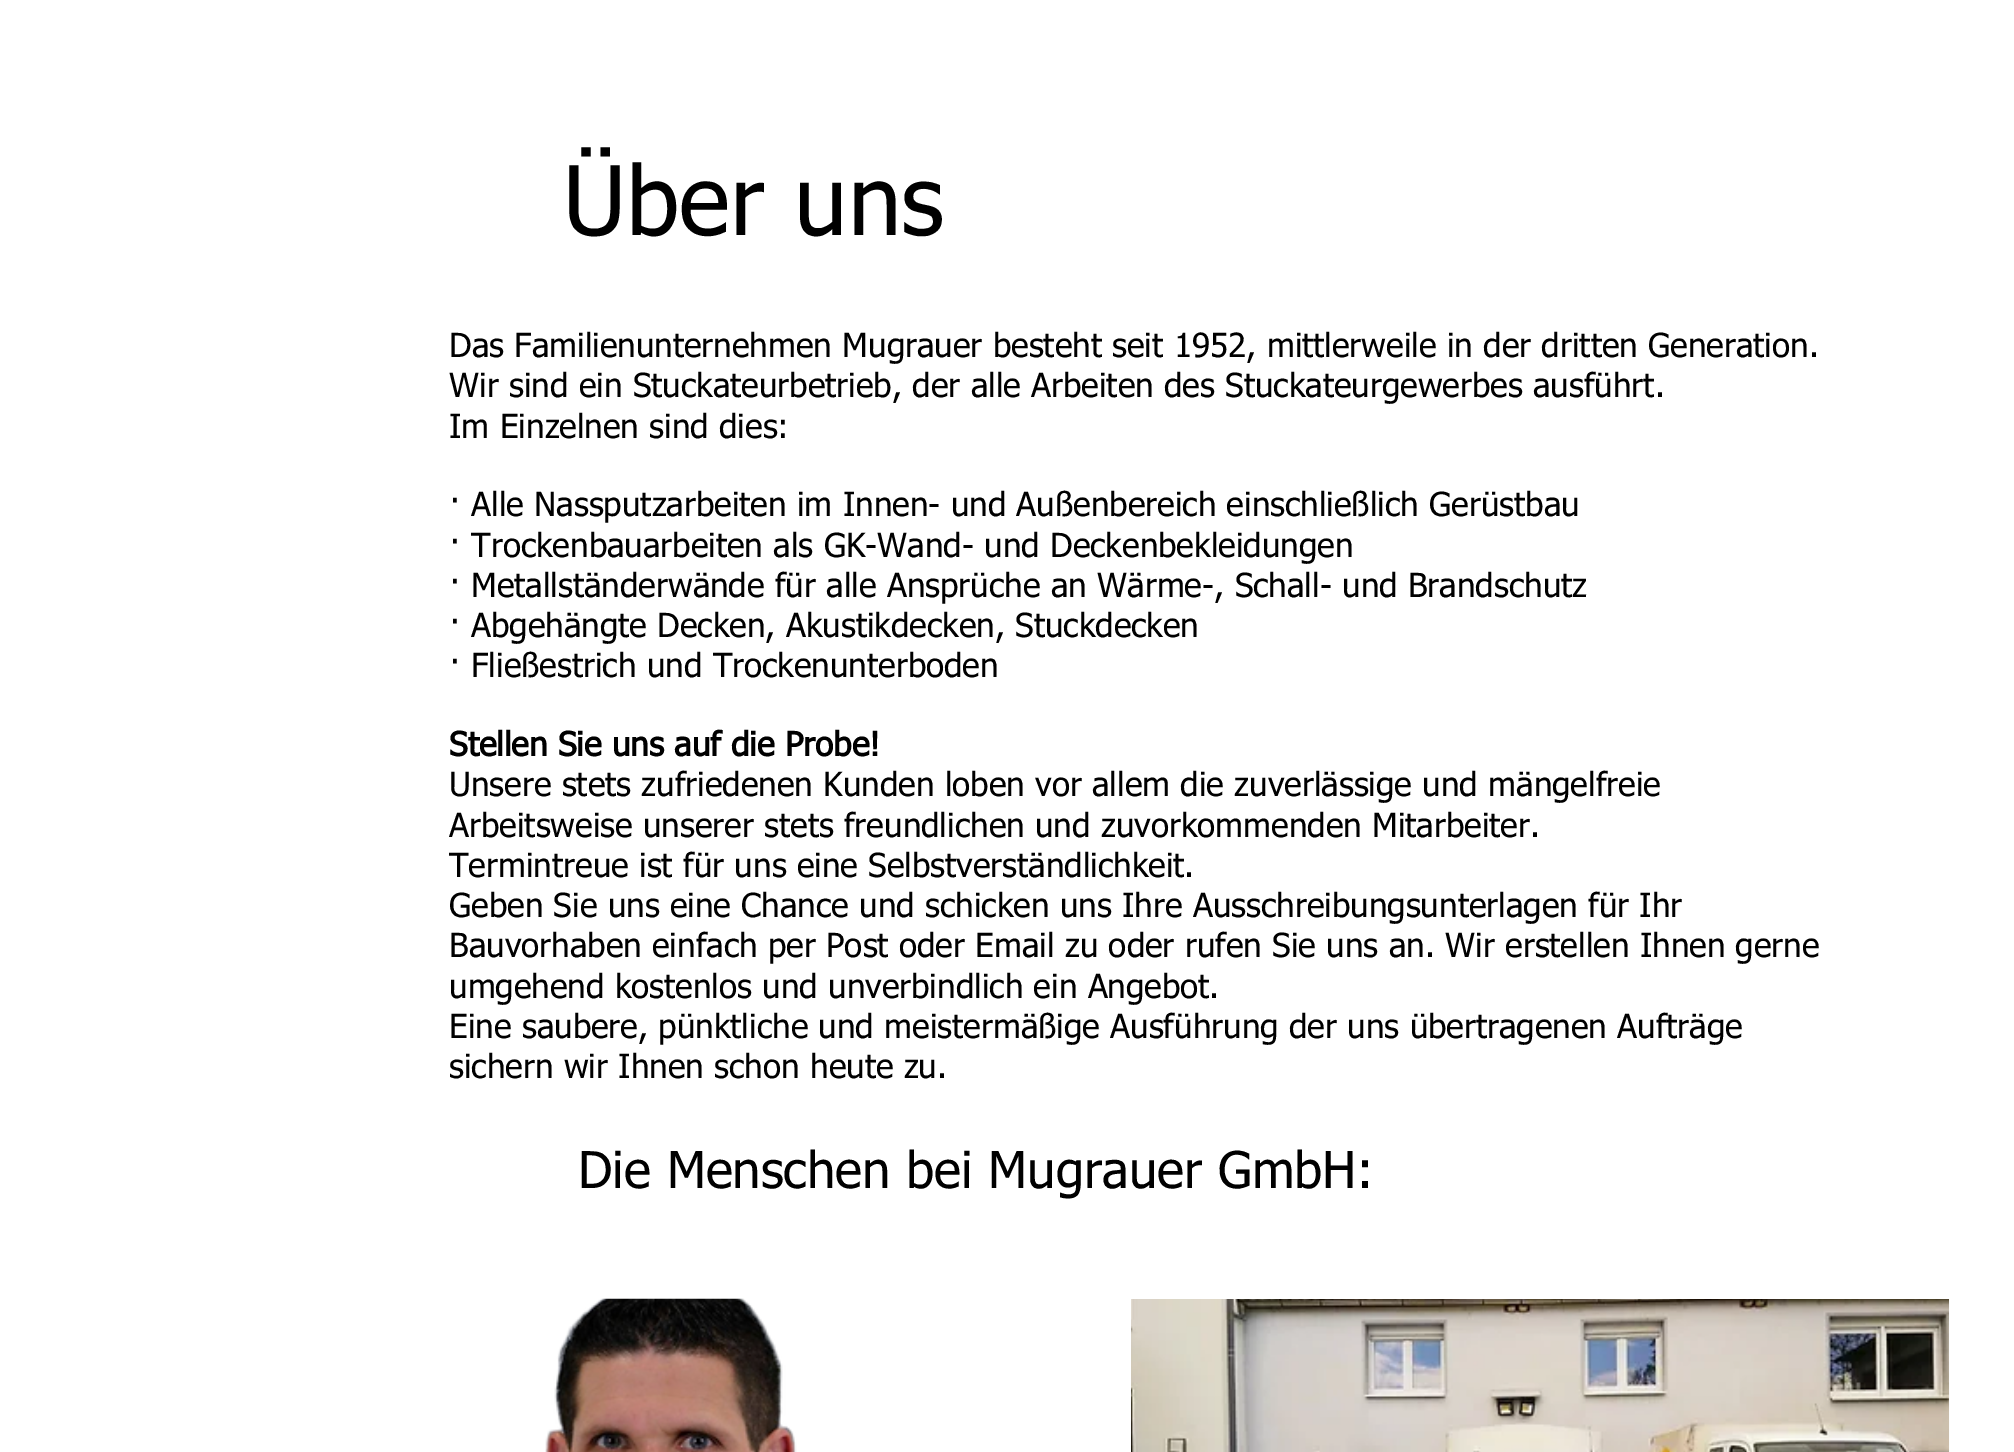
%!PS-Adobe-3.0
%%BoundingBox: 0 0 2014 1452
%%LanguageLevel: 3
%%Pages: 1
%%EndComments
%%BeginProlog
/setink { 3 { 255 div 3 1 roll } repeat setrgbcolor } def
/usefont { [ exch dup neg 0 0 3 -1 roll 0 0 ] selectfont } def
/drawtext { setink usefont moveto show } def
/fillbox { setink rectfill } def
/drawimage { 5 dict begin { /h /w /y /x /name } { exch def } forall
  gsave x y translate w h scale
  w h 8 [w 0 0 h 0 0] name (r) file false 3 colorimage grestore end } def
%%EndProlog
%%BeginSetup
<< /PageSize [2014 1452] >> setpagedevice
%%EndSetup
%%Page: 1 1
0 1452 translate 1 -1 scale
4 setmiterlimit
0 0 2014 1452 255 255 255 fillbox
(Über uns) 563 235 /tahoma-Regular 96 0 0 0 drawtext
(Das Familienunternehmen Mugrauer besteht seit 1952, mittlerweile in der dritten Generation.) 449 357 /tahoma-Regular 33.25 0 0 0 drawtext
(Wir sind ein Stuckateurbetrieb, der alle Arbeiten des Stuckateurgewerbes ausführt.) 449 397 /tahoma-Regular 33.25 0 0 0 drawtext
(Im Einzelnen sind dies:) 449 438 /tahoma-Regular 33.25 0 0 0 drawtext
(· Alle Nassputzarbeiten im Innen- und Außenbereich einschließlich Gerüstbau) 449 516 /tahoma-Regular 33.25 0 0 0 drawtext
(· Trockenbauarbeiten als GK-Wand- und Deckenbekleidungen) 449 557 /tahoma-Regular 33.25 0 0 0 drawtext
(· Metallständerwände für alle Ansprüche an Wärme-, Schall- und Brandschutz) 449 597 /tahoma-Regular 33.25 0 0 0 drawtext
(· Abgehängte Decken, Akustikdecken, Stuckdecken) 449 637 /tahoma-Regular 33.25 0 0 0 drawtext
(· Fließestrich und Trockenunterboden) 449 677 /tahoma-Regular 33.25 0 0 0 drawtext
(Stellen Sie uns auf die Probe!) 449 756 /tahoma-Bold 33.25 0 0 0 drawtext
(Unsere stets zufriedenen Kunden loben vor allem die zuverlässige und mängelfreie) 449 796 /tahoma-Regular 33.25 0 0 0 drawtext
(Arbeitsweise unserer stets freundlichen und zuvorkommenden Mitarbeiter.) 449 837 /tahoma-Regular 33.25 0 0 0 drawtext
(Termintreue ist für uns eine Selbstverständlichkeit.) 449 877 /tahoma-Regular 33.25 0 0 0 drawtext
(Geben Sie uns eine Chance und schicken uns Ihre Ausschreibungsunterlagen für Ihr) 449 917 /tahoma-Regular 33.25 0 0 0 drawtext
(Bauvorhaben einfach per Post oder Email zu oder rufen Sie uns an. Wir erstellen Ihnen gerne) 449 957 /tahoma-Regular 33.25 0 0 0 drawtext
(umgehend kostenlos und unverbindlich ein Angebot.) 449 998 /tahoma-Regular 33.25 0 0 0 drawtext
(Eine saubere, pünktliche und meistermäßige Ausführung der uns übertragenen Aufträge) 449 1038 /tahoma-Regular 33.25 0 0 0 drawtext
(sichern wir Ihnen schon heute zu.) 449 1078 /tahoma-Regular 33.25 0 0 0 drawtext
(Die Menschen bei Mugrauer GmbH:) 578 1188 /tahoma-Regular 50.75 0 0 0 drawtext
(assets/img1.rgb) 545 1298 252 154 drawimage
(assets/img2.rgb) 1131 1299 819 153 drawimage
showpage
%%EOF
